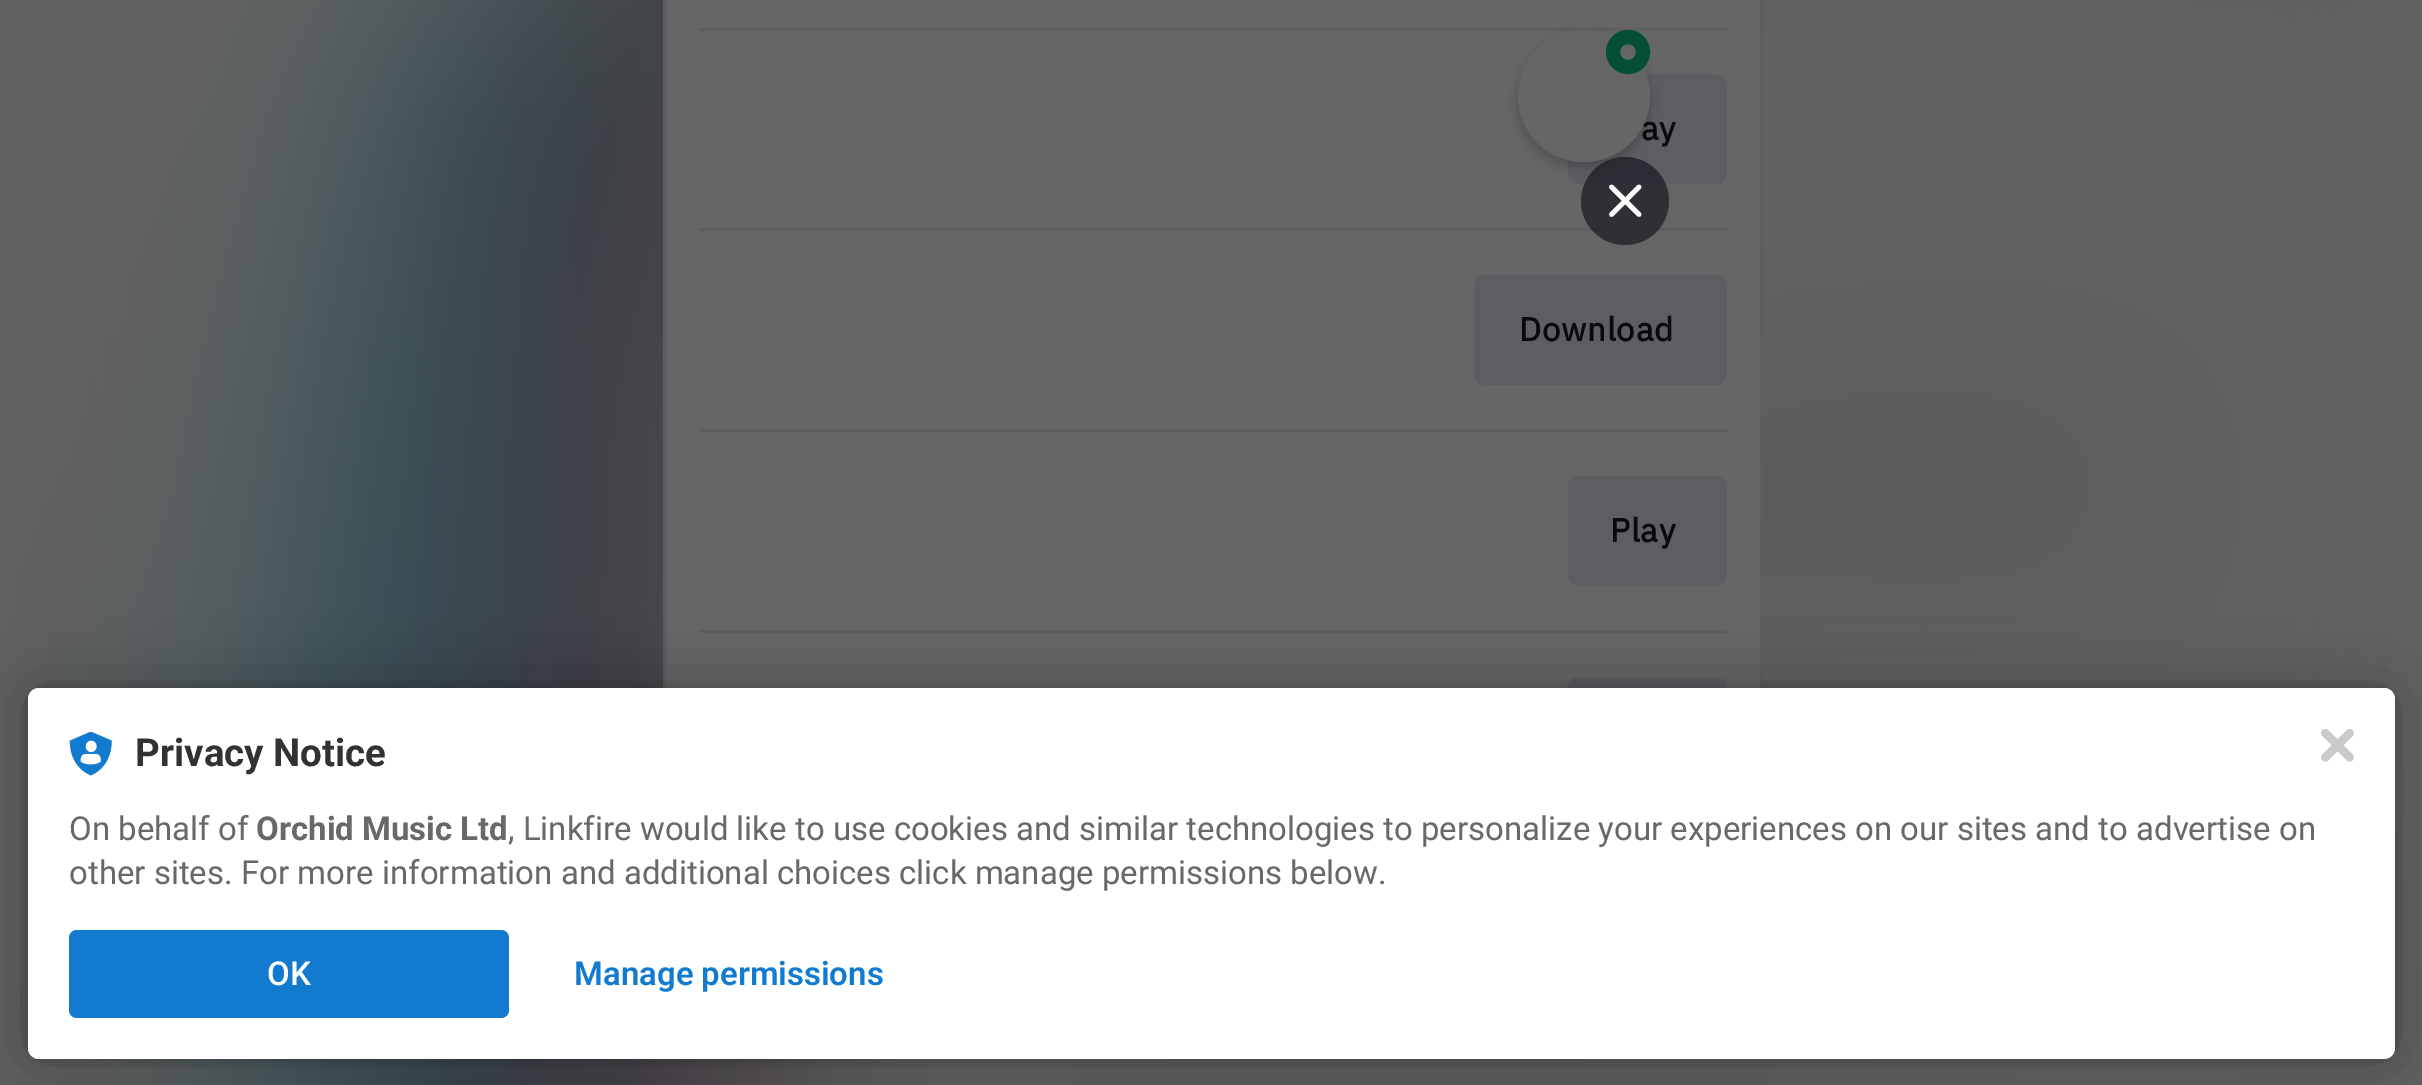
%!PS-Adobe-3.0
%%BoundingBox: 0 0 2422 1085
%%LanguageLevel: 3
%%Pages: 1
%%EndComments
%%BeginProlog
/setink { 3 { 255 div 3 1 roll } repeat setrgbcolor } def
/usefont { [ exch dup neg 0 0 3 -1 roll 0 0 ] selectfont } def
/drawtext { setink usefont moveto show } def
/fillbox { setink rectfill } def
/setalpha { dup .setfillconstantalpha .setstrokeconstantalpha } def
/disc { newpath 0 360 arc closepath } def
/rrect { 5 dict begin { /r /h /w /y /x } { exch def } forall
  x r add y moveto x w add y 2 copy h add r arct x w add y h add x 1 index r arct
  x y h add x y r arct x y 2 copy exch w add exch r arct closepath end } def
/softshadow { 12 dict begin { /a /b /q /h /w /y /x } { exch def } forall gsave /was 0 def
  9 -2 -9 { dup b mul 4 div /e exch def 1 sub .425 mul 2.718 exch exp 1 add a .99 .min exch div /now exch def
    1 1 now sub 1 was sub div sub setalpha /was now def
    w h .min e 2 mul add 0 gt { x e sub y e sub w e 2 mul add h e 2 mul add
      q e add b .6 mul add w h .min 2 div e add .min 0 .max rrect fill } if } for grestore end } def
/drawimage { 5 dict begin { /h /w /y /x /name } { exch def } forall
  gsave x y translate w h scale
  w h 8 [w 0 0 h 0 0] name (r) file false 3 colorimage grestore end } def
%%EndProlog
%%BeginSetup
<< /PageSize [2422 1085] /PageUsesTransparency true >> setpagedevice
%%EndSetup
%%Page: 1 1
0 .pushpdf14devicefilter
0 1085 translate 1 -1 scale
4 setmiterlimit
0 0 2422 1085 102 102 102 fillbox
(assets/img1.rgb) 0 0 2422 1085 drawimage
92 94 97 setink
3 setlinewidth
664.5 -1.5 1097 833 rectstroke
666 0 1094 688 102 102 102 fillbox
699 28 1028 3 92 94 97 fillbox
1568 74 159 110 11 rrect fill
0 0 0 setink
1518 36 132 132 66 5.5 0.2 softshadow
/IBMPlexSans-Bold 33 usefont
10 9 13 setink
1641 140 moveto 0.75 0 (ay) ashow
102 102 102 setink
1584 96 66 disc fill
5 79 54 setink
14 setlinewidth
1628 52 15 disc stroke
699 228 1028 3 92 94 97 fillbox
0.7 setalpha
24 23 33 setink
1625 201 44 disc fill
1 setalpha
255 255 255 setink
4.6 setlinewidth
1 setlinecap
1 setlinejoin
1611.5 187 moveto 1639 214.5 lineto 1611.5 214.5 moveto 1639 187 lineto stroke
92 94 97 setink
1474 275 253 110 11 rrect fill
10 9 13 setink
1519 341 moveto 0.75 0 (Download) ashow
699 429 1028 3 92 94 97 fillbox
1568 476 159 110 11 rrect fill
10 9 13 setink
1610 542 moveto 0.75 0 (Play) ashow
699 630 1028 3 92 94 97 fillbox
1568 677 159 110 11 rrect fill
0 0 0 setink
28 688 2367 371 11 5.5 0.12 softshadow
28 688 2367 371 11 33 0.3 softshadow
255 255 255 setink
28 688 2367 371 11 rrect fill
(assets/img2.rgb) 69 732 43 44 drawimage
(Privacy Notice) 135 766 /Roboto-Bold 38.5 50 50 50 drawtext
(On behalf of) 69 840 /Roboto-Regular 33 104 104 104 drawtext
(Orchid Music Ltd) 256 840 /Roboto-Bold 33 104 104 104 drawtext
(, Linkfire would like to use cookies and similar technologies to personalize your experiences on our sites and to advertise on) 508 840 /Roboto-Regular 33 104 104 104 drawtext
(other sites. For more information and additional choices click manage permissions below.) 69 884 /Roboto-Regular 33 104 104 104 drawtext
19 123 207 setink
69 930 440 88 8 rrect fill
(OK) 267 985 /Roboto-Medium 33 255 255 255 drawtext
(Manage permissions) 574 985 /Roboto-SemiBold 33 19 123 207 drawtext
(assets/img3.rgb) 2321 729 33 33 drawimage
.poppdf14devicefilter showpage
%%EOF
